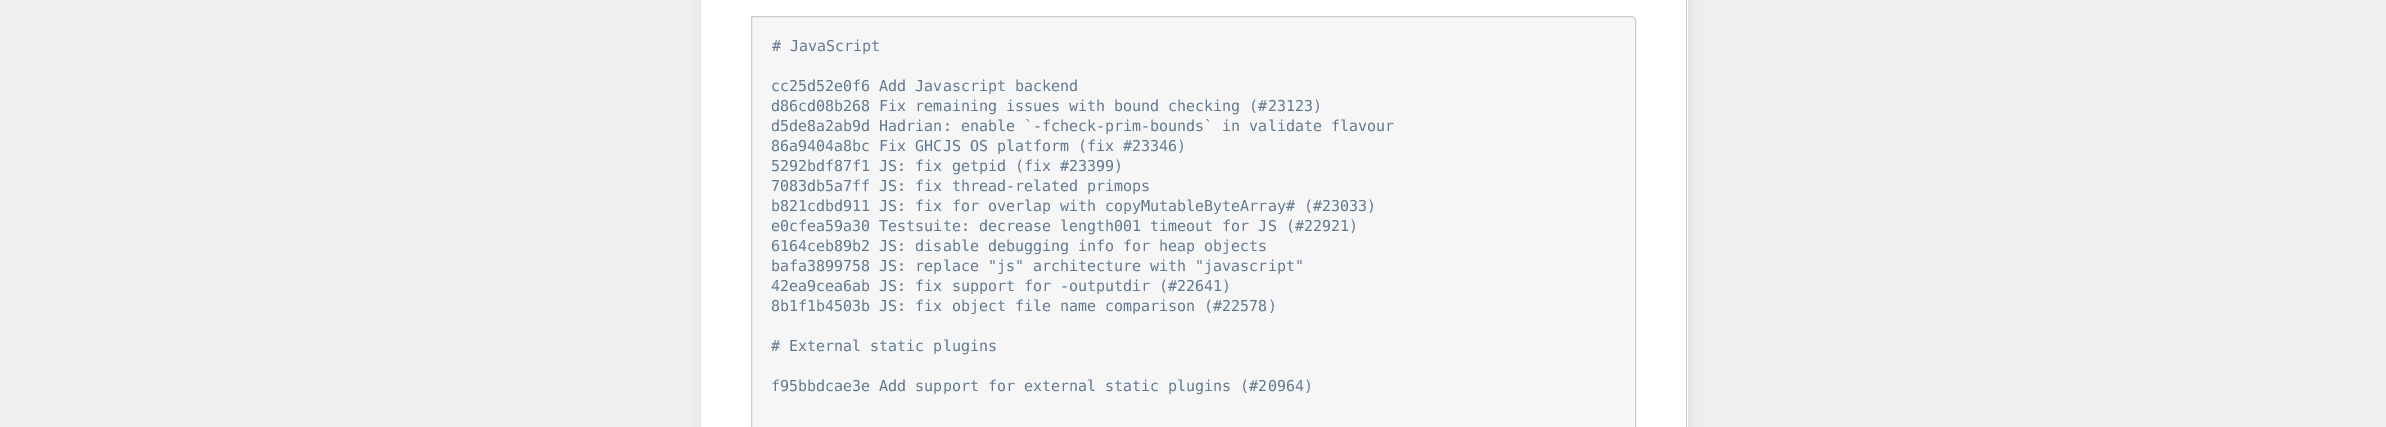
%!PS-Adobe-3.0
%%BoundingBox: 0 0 2386 427
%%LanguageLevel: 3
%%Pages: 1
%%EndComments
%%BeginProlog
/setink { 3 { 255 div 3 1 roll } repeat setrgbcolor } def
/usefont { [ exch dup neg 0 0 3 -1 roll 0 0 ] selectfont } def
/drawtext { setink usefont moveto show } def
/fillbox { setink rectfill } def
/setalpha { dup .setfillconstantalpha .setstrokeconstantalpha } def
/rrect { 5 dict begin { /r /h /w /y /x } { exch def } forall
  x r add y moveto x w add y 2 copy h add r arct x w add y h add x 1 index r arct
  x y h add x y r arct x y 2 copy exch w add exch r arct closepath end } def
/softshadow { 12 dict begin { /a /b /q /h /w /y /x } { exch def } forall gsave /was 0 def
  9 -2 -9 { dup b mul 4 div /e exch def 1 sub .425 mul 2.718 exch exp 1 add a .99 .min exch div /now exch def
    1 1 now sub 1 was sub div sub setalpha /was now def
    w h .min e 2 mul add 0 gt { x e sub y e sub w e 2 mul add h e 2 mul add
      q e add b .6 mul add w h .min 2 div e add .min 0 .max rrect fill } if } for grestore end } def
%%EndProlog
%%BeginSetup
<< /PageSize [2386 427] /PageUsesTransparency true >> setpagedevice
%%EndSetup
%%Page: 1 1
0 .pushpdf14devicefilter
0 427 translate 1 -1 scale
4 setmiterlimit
0 0 2386 427 239 239 239 fillbox
0 0 0 setink
703 -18 987 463 0 6 0.07 softshadow
701 0 987 427 255 255 255 fillbox
1686 0 1 427 200 200 200 fillbox
700 0 1 427 228 228 228 fillbox
246 246 246 setink
751.5 16.5 moveto 1631 16.5 lineto 1633.5 16.5 1635.5 18.5 1635.5 21 curveto 1635.5 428 lineto 1635.5 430.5 1633.5 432.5 1631 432.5 curveto 751.5 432.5 lineto closepath gsave fill grestore
204 204 204 setink
stroke
(# JavaScript) 772 51 /DejaVuSansMono-Regular 15 96 120 144 drawtext
(cc25d52e0f6 Add Javascript backend) 771 91 /DejaVuSansMono-Regular 15 96 120 144 drawtext
(d86cd08b268 Fix remaining issues with bound checking \(#23123\)) 771 111 /DejaVuSansMono-Regular 15 96 120 144 drawtext
(d5de8a2ab9d Hadrian: enable `-fcheck-prim-bounds` in validate flavour) 771 131 /DejaVuSansMono-Regular 15 96 120 144 drawtext
(86a9404a8bc Fix GHCJS OS platform \(fix #23346\)) 771 151 /DejaVuSansMono-Regular 15 96 120 144 drawtext
(5292bdf87f1 JS: fix getpid \(fix #23399\)) 771 171 /DejaVuSansMono-Regular 15 96 120 144 drawtext
(7083db5a7ff JS: fix thread-related primops) 771 191 /DejaVuSansMono-Regular 15 96 120 144 drawtext
(b821cdbd911 JS: fix for overlap with copyMutableByteArray# \(#23033\)) 771 211 /DejaVuSansMono-Regular 15 96 120 144 drawtext
(e0cfea59a30 Testsuite: decrease length001 timeout for JS \(#22921\)) 771 231 /DejaVuSansMono-Regular 15 96 120 144 drawtext
(6164ceb89b2 JS: disable debugging info for heap objects) 771 251 /DejaVuSansMono-Regular 15 96 120 144 drawtext
(bafa3899758 JS: replace "js" architecture with "javascript") 771 271 /DejaVuSansMono-Regular 15 96 120 144 drawtext
(42ea9cea6ab JS: fix support for -outputdir \(#22641\)) 771 291 /DejaVuSansMono-Regular 15 96 120 144 drawtext
(8b1f1b4503b JS: fix object file name comparison \(#22578\)) 771 311 /DejaVuSansMono-Regular 15 96 120 144 drawtext
(# External static plugins) 771 351 /DejaVuSansMono-Regular 15 96 120 144 drawtext
(f95bbdcae3e Add support for external static plugins \(#20964\)) 771 391 /DejaVuSansMono-Regular 15 96 120 144 drawtext
.poppdf14devicefilter showpage
%%EOF
